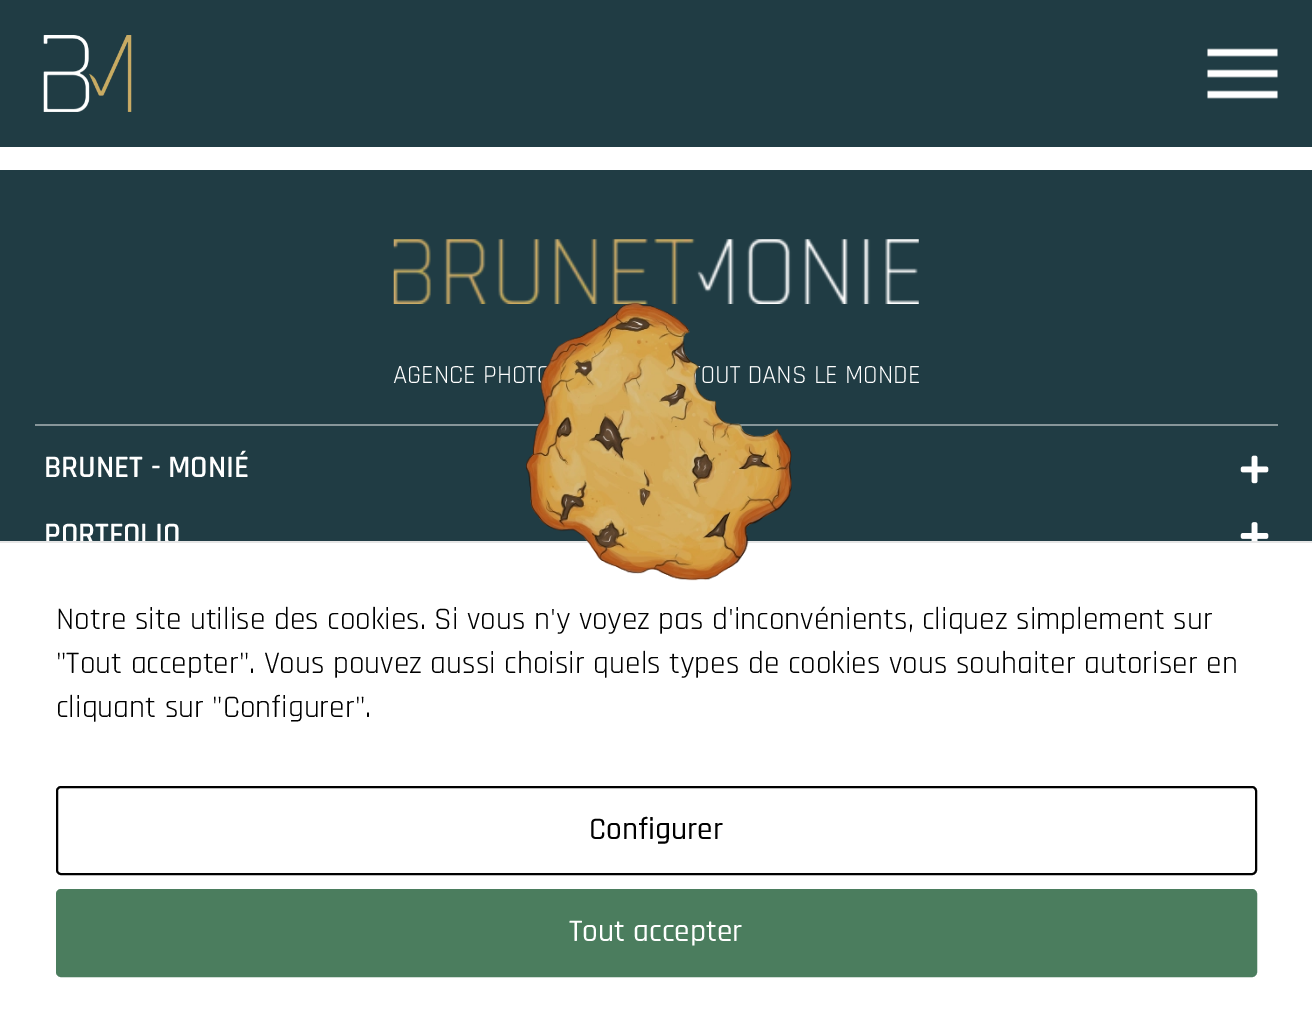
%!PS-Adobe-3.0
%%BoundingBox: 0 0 1312 1031
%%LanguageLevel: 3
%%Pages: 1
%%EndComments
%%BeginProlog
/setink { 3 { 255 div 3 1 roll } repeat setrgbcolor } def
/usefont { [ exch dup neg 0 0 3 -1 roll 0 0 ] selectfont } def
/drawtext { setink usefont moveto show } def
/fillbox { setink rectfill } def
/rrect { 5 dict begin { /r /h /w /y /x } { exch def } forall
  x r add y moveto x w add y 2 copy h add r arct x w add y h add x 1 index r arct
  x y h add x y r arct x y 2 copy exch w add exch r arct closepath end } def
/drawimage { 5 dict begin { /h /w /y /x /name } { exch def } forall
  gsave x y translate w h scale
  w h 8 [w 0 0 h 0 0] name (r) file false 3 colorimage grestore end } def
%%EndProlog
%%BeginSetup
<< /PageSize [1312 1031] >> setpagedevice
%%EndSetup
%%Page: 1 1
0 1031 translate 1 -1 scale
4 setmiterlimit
0 0 1312 1031 32 60 68 fillbox
(assets/img1.rgb) 43 35 89 77 drawimage
(assets/img2.rgb) 1207 48 71 51 drawimage
0 147 1312 23 255 255 255 fillbox
(assets/img3.rgb) 393 239 526 65 drawimage
(AGENCE PHOT) 393 383 /Rajdhani-Regular 26.25 255 255 255 drawtext
(OUT DANS LE MONDE) 701 383 /Rajdhani-Regular 26.25 255 255 255 drawtext
35 424 1243 2 135 150 154 fillbox
(BRUNET - MONIÉ) 44 477 /Rajdhani-SemiBold 31.5 255 255 255 drawtext
(assets/img4.rgb) 1240 455 29 29 drawimage
(PORTFOLIO) 44 544 /Rajdhani-SemiBold 31.5 255 255 255 drawtext
(assets/img5.rgb) 1240 522 29 19 drawimage
0 543 1312 488 255 255 255 fillbox
0 541 1312 2 230 230 230 fillbox
(assets/img6.rgb) 526 302 266 279 drawimage
(Notre site utilise des cookies. Si vous n'y voyez pas d'inconvénients, cliquez simplement sur) 56 629 /Rajdhani-Regular 31.5 0 0 0 drawtext
("Tout accepter". Vous pouvez aussi choisir quels types de cookies vous souhaiter autoriser en) 56 673 /Rajdhani-Regular 31.5 0 0 0 drawtext
(cliquant sur "Configurer".) 56 717 /Rajdhani-Regular 31.5 0 0 0 drawtext
2 setlinewidth
57 787 1199 87 4 rrect stroke
(Configurer) 589 839 /Rajdhani-Medium 31.5 0 0 0 drawtext
75 125 94 setink
57 890 1199 86 4 rrect gsave fill grestore
stroke
(Tout accepter) 569 941 /Rajdhani-Medium 31.5 255 255 255 drawtext
showpage
%%EOF
